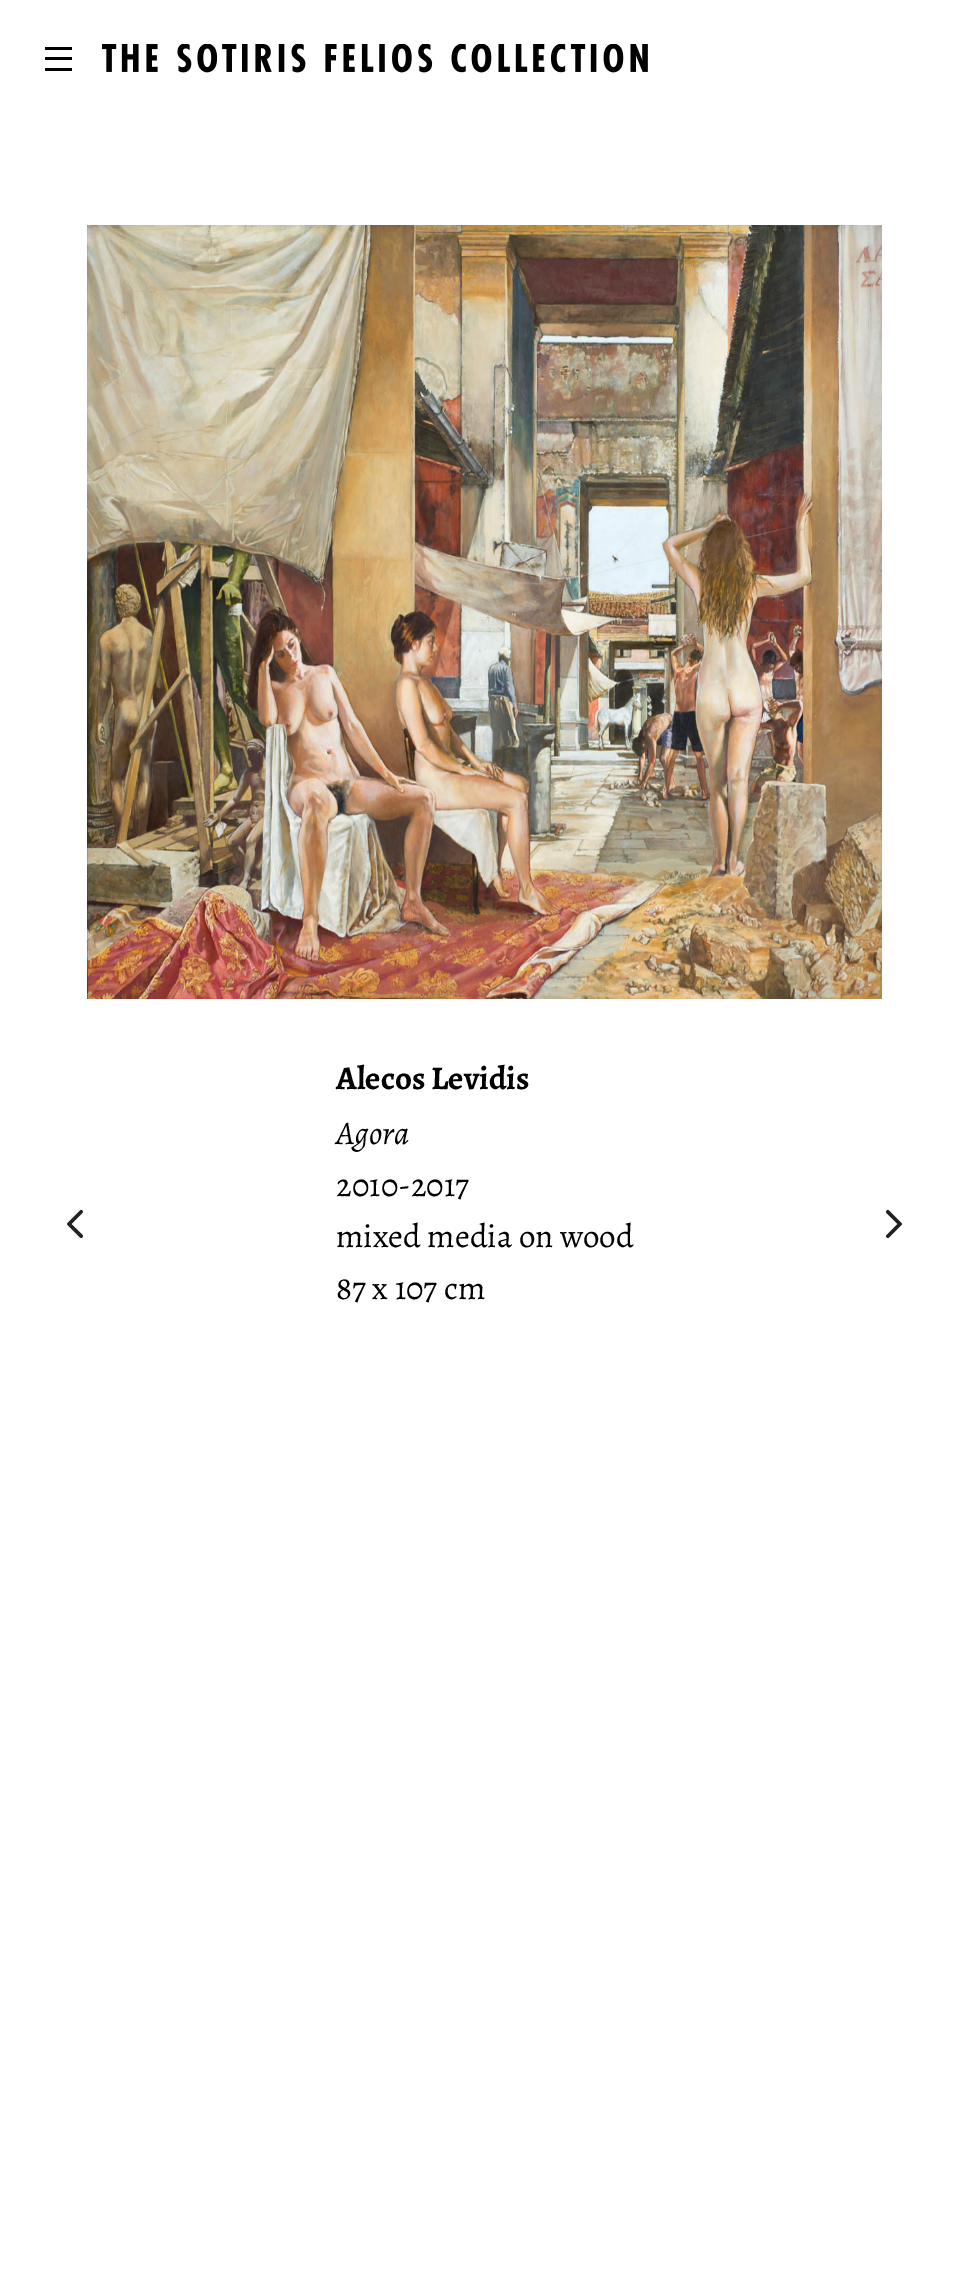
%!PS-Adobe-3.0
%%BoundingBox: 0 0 968 2296
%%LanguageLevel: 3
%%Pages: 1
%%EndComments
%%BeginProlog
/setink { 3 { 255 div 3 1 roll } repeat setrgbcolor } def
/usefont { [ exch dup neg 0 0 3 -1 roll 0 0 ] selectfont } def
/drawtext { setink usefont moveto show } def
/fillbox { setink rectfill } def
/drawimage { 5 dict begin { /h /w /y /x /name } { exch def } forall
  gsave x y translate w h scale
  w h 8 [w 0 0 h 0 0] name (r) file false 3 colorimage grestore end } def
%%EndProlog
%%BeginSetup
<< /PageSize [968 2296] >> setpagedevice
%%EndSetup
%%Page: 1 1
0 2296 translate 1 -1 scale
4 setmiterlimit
0 0 968 2296 255 255 255 fillbox
45 47 27 3 0 0 0 fillbox
45 57 27 3 0 0 0 fillbox
45 68 27 3 0 0 0 fillbox
(assets/img1.rgb) 102 44 546 29 drawimage
(assets/img2.rgb) 87 225 795 774 drawimage
(Alecos Levidis) 336 1089 /Alegreya-Bold 33 0 0 0 drawtext
(Agora) 336 1144 /Alegreya-Italic 33 0 0 0 drawtext
(2010-2017) 336 1196 /Alegreya-Regular 33 0 0 0 drawtext
(mixed media on wood) 336 1247 /Alegreya-Regular 33 0 0 0 drawtext
(87 x 107 cm) 336 1299 /Alegreya-Regular 33 0 0 0 drawtext
(assets/img3.rgb) 67 1209 16 29 drawimage
(assets/img4.rgb) 885 1209 17 29 drawimage
showpage
%%EOF
